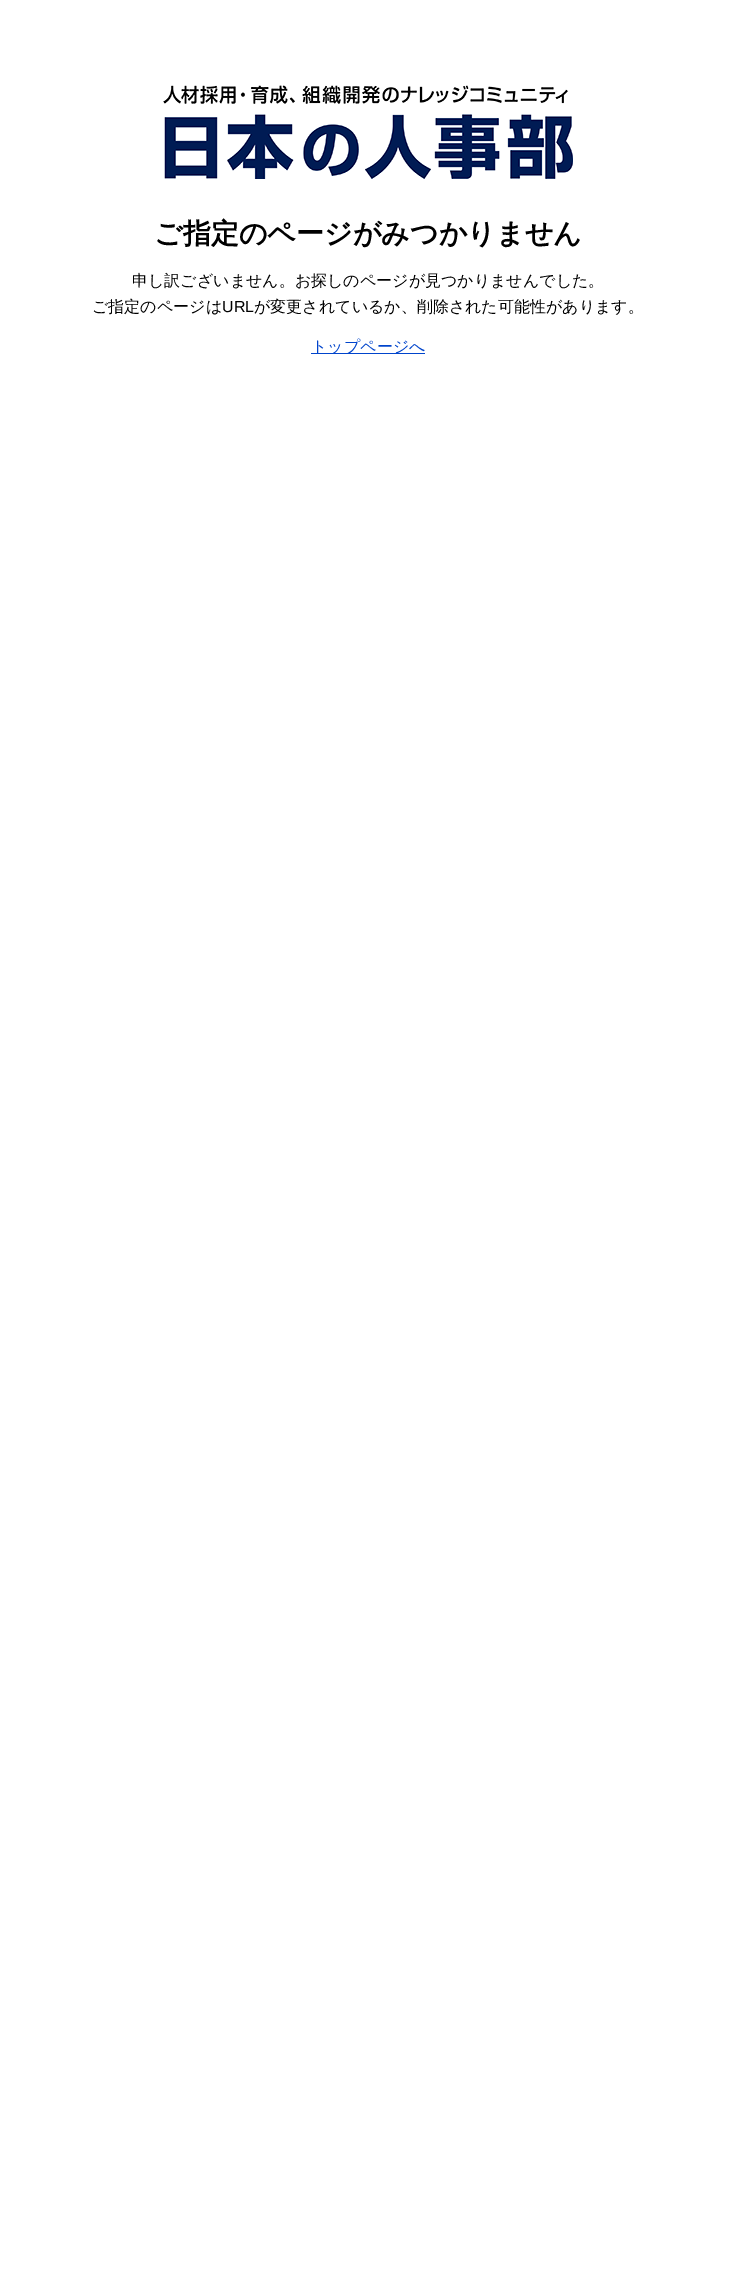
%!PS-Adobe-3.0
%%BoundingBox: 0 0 736 2281
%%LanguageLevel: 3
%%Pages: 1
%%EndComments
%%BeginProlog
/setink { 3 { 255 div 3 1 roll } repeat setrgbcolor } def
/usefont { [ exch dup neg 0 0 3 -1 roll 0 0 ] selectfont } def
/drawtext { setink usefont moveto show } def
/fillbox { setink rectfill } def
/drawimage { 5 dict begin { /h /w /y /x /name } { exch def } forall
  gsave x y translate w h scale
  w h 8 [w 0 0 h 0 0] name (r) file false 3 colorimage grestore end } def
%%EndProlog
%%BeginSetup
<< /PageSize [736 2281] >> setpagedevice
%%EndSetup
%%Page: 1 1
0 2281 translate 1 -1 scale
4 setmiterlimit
0 0 736 2281 255 255 255 fillbox
(assets/img1.rgb) 163 85 410 94 drawimage
(ご指定のページがみつかりません) 154 243 /WenQuanYiZenHei-Bold 28 0 0 0 drawtext
(申し訳ございません。お探しのページが見つかりませんでした。) 132 286 /WenQuanYiZenHei-Medium 16 0 0 0 drawtext
(ご指定のページは) 92 312 /WenQuanYiZenHei-Medium 16 0 0 0 drawtext
(URL) 222 312 /LiberationSans-Regular 16 0 0 0 drawtext
(が変更されているか、削除された可能性があります。) 254 312 /WenQuanYiZenHei-Medium 16 0 0 0 drawtext
311 353 114 1 0 68 204 fillbox
(トップページへ) 311 352 /WenQuanYiZenHei-Medium 16 0 68 204 drawtext
showpage
%%EOF
